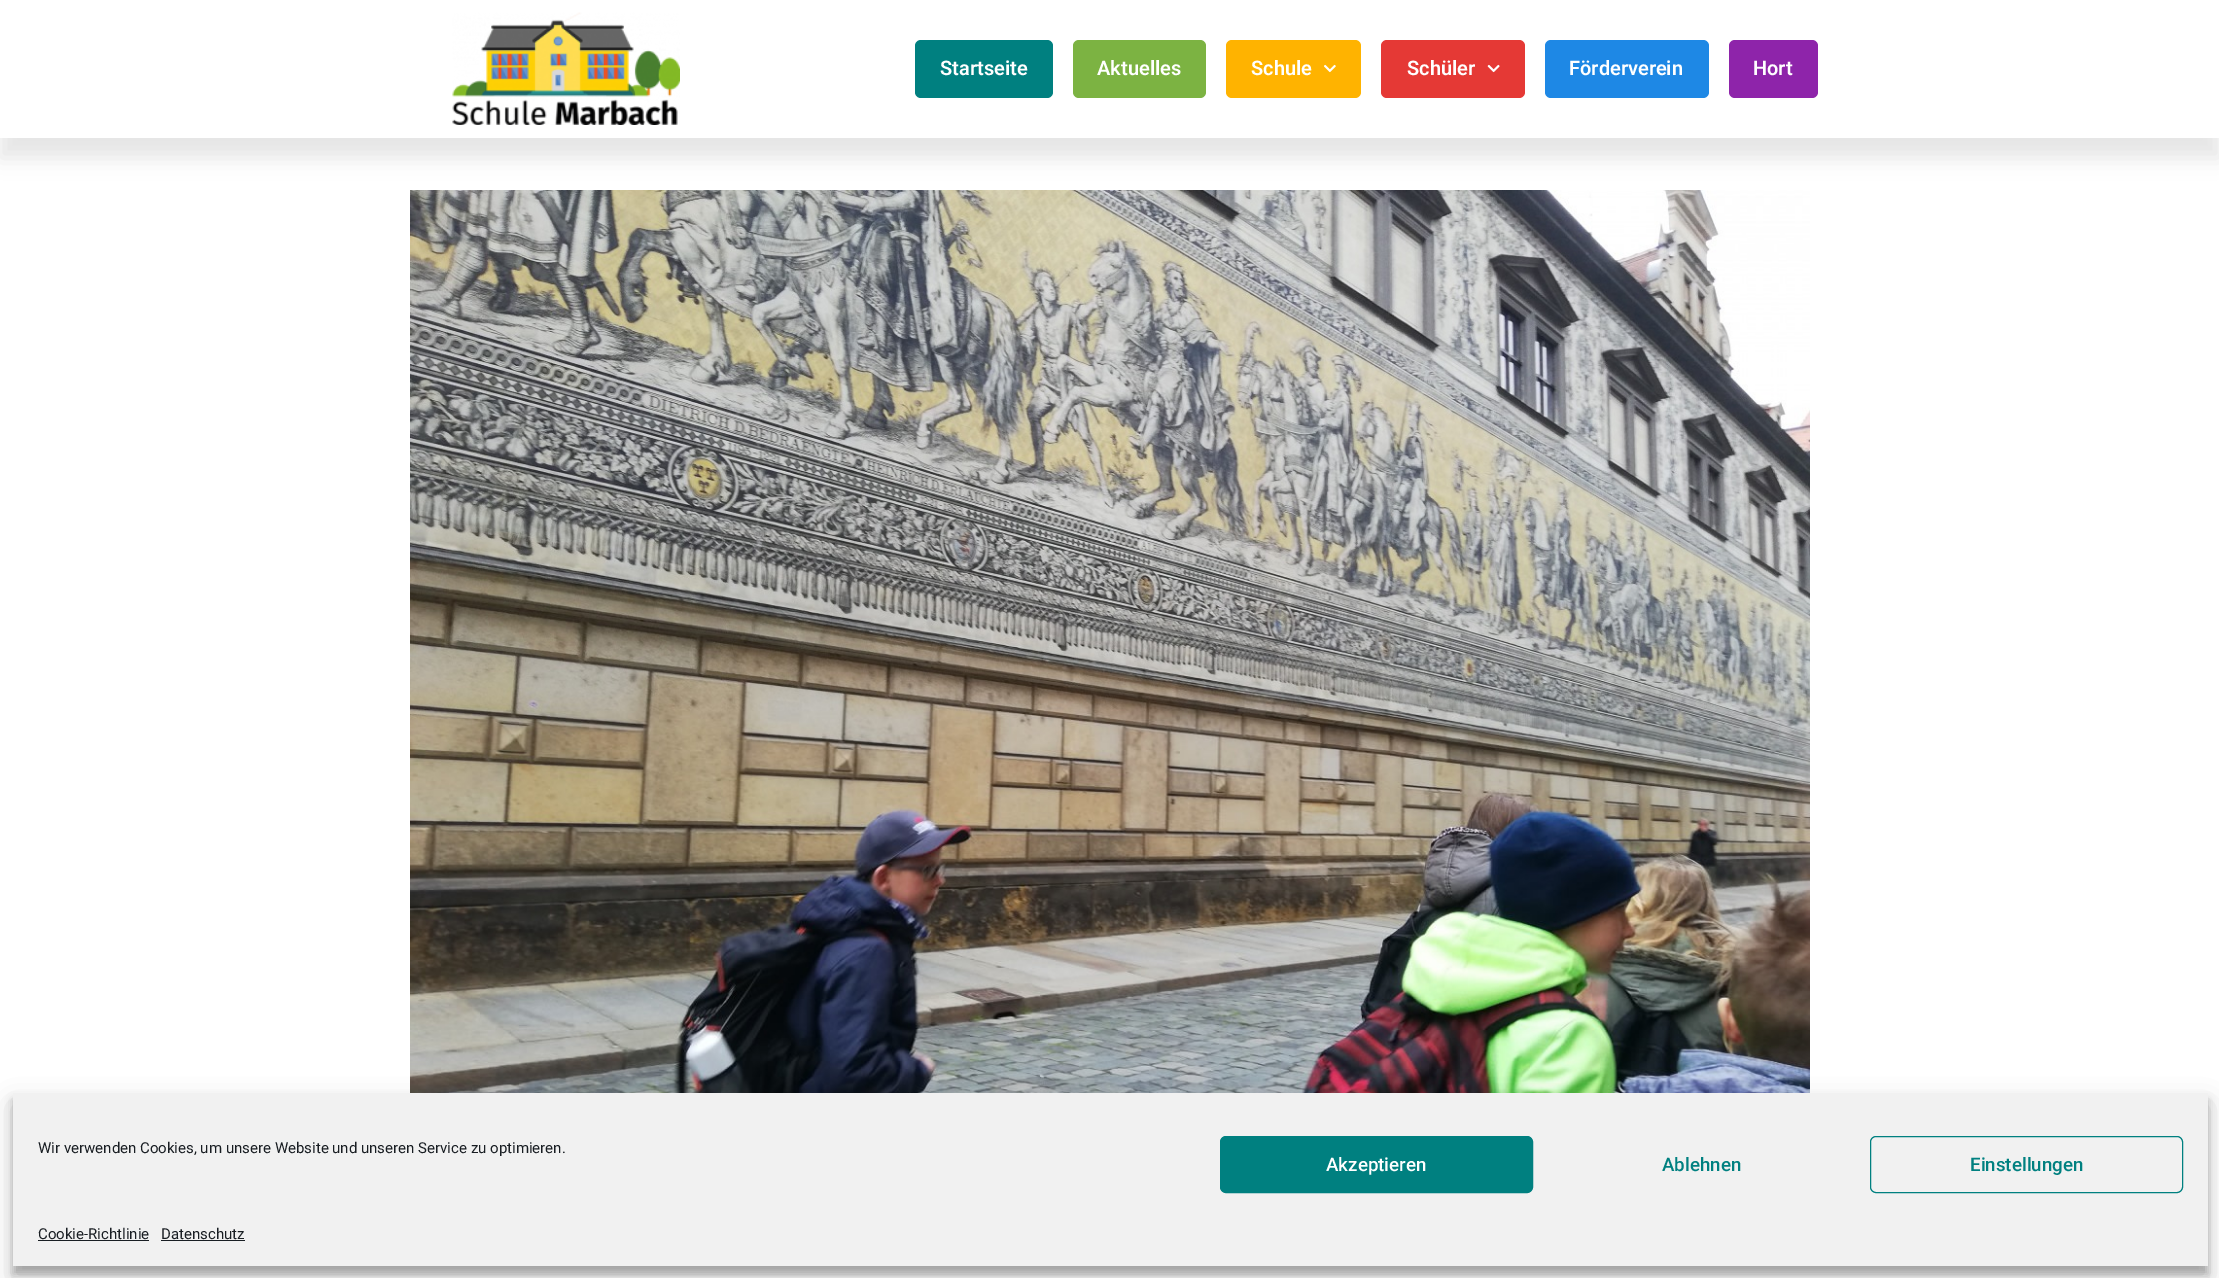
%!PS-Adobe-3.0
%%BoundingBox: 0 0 2219 1278
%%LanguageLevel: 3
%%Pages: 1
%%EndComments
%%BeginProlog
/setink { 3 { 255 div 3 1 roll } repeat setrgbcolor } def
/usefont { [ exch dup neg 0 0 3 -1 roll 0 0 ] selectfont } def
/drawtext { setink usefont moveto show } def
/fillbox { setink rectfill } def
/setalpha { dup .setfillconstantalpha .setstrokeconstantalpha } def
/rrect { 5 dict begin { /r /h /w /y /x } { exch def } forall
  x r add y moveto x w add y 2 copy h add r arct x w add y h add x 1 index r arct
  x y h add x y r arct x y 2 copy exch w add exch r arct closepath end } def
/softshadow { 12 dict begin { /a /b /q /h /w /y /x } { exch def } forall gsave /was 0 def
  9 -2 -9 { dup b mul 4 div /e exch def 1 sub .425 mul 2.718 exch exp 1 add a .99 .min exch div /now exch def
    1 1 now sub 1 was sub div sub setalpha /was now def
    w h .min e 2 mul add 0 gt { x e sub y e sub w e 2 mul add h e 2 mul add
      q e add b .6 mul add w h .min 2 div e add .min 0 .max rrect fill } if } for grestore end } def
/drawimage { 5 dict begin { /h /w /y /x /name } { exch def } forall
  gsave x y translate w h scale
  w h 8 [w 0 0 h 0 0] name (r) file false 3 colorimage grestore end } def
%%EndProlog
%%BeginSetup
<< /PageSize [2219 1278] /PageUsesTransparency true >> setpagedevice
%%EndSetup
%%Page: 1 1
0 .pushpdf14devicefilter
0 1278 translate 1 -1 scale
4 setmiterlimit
0 0 2219 1278 255 255 255 fillbox
gsave
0 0 moveto 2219 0 lineto 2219 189 lineto 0 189 lineto closepath 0 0 moveto 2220 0 lineto 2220 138 lineto 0 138 lineto closepath eoclip newpath
0 0 0 setink
0 20 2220 138 0 10 0.1 softshadow
grestore
(assets/img1.rgb) 452 12 228 113 drawimage
0 128 128 setink
915 40 138 58 6 rrect fill
(Startseite) 940 75 /Roboto-SemiBold 20 255 255 255 drawtext
124 179 66 setink
1073 40 133 58 6 rrect fill
(Aktuelles) 1097 75 /Roboto-SemiBold 20 255 255 255 drawtext
255 179 0 setink
1226 40 135 58 6 rrect fill
(Schule) 1251 75 /Roboto-SemiBold 20 255 255 255 drawtext
(assets/img2.rgb) 1324 64 12 9 drawimage
229 57 53 setink
1381 40 144 58 6 rrect fill
(Schüler) 1407 75 /Roboto-SemiBold 20 255 255 255 drawtext
(assets/img3.rgb) 1487 64 13 9 drawimage
30 136 229 setink
1545 40 164 58 6 rrect fill
(Förderverein) 1569 75 /Roboto-SemiBold 20 255 255 255 drawtext
142 36 170 setink
1729 40 89 58 6 rrect fill
(Hort) 1753 75 /Roboto-SemiBold 20 255 255 255 drawtext
(assets/img4.rgb) 410 190 1400 903 drawimage
0 0 0 setink
13 1100 2195 174 0 4 0.23 softshadow
13 1105 2195 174 0 12.5 0.19 softshadow
13 1093 2195 173 241 241 241 fillbox
(Wir verwenden Cookies, um unsere Website und unseren Service zu optimieren.) 38 1153 /Roboto-Regular 15 25 30 35 drawtext
0 128 128 setink
1220.5 1136.5 312 56 5.5 rrect gsave fill grestore
stroke
(Akzeptieren) 1326 1171 /Roboto-Medium 18.75 255 255 255 drawtext
(Ablehnen) 1662 1171 /Roboto-Medium 18.75 0 128 128 drawtext
1870.5 1136.5 312 56 5.5 rrect stroke
(Einstellungen) 1970 1171 /Roboto-Medium 18.75 0 128 128 drawtext
(Cookie-Richtlinie) 38 1239 /Roboto-Regular 15 25 30 35 drawtext
38 1240 111 1 25 30 35 fillbox
(Datenschutz) 161 1239 /Roboto-Regular 15 25 30 35 drawtext
161 1240 84 1 25 30 35 fillbox
.poppdf14devicefilter showpage
%%EOF
